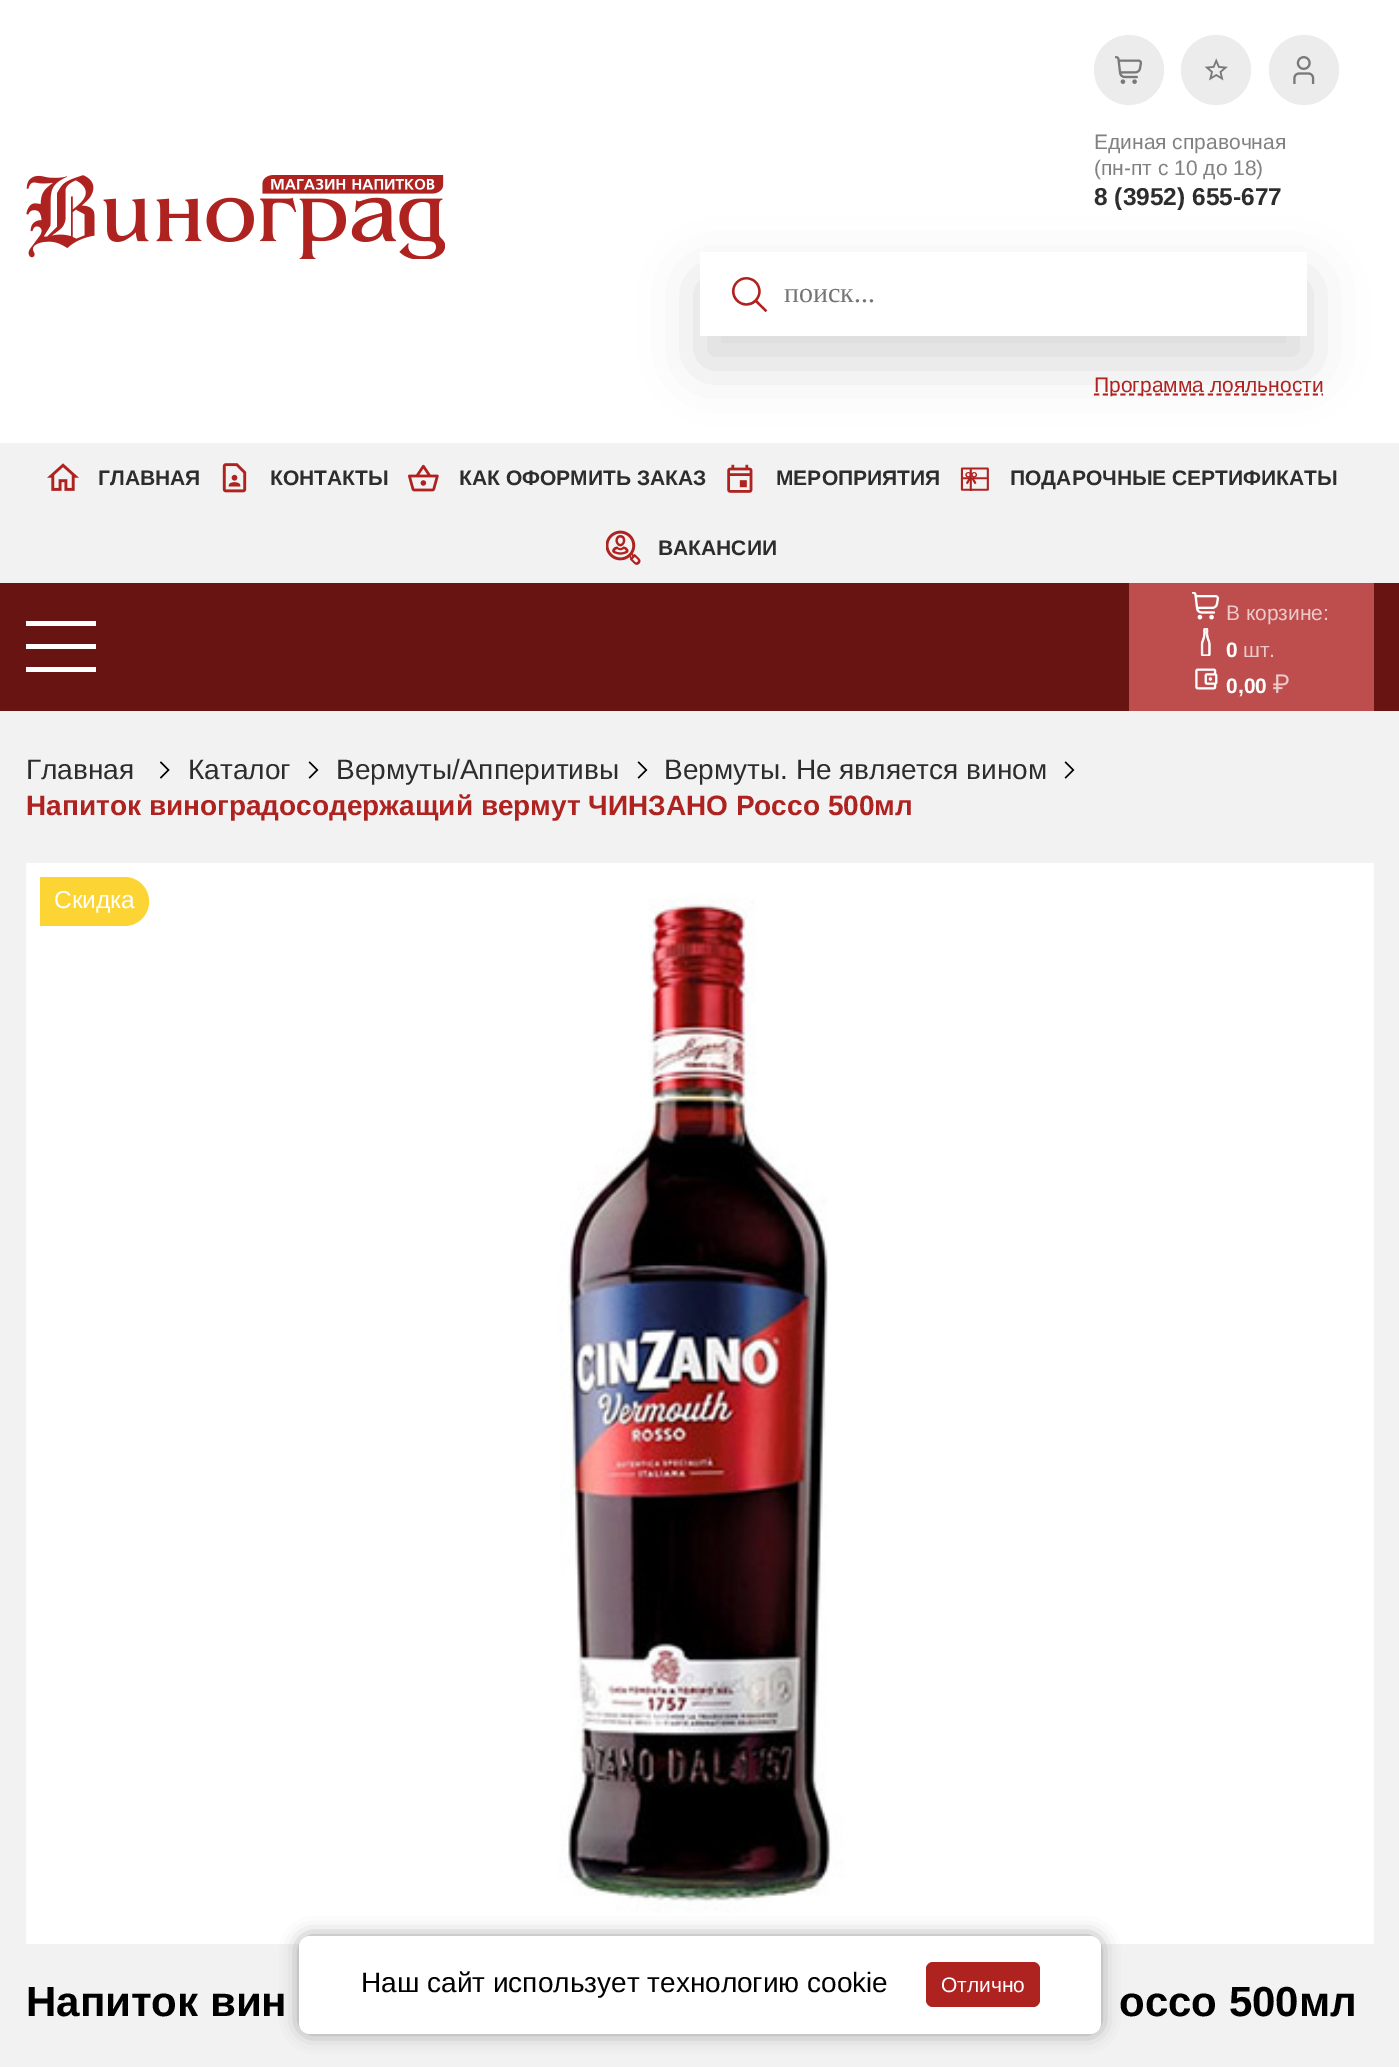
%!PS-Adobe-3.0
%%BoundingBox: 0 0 1399 2067
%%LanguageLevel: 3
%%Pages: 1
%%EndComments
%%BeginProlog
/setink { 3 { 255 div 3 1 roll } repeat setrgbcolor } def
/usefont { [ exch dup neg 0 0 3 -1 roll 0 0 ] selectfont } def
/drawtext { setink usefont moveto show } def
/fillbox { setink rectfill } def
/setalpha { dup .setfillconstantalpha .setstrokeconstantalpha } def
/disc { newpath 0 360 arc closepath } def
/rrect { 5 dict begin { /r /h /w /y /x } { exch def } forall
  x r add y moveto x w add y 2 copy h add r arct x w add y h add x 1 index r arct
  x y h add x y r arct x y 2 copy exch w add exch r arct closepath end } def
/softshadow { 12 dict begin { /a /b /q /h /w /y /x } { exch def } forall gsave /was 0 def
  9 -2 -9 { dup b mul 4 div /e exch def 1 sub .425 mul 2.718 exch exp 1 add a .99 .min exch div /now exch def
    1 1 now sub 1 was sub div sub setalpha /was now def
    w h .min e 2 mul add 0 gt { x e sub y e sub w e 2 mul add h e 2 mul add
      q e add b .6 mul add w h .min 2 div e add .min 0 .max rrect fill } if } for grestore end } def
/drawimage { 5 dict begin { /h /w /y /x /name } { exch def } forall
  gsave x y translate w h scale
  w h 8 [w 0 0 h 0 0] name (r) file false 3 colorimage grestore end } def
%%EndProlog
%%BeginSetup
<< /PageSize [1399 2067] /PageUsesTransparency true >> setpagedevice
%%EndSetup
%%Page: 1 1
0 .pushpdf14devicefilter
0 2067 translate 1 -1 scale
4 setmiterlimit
0 0 1399 2067 242 242 242 fillbox
0 0 1399 443 255 255 255 fillbox
236 236 236 setink
1129 70 35 disc fill
(assets/img1.rgb) 1115 56 27 28 drawimage
1216 70 35 disc fill
(assets/img2.rgb) 1204 58 24 23 drawimage
1304 70 35 disc fill
(assets/img3.rgb) 1293 56 22 28 drawimage
(assets/img4.rgb) 26 175 419 84 drawimage
(Единая справочная) 1094 149 /LiberationSans-Regular 21 129 129 129 drawtext
(\(пн-пт с 10 до 18\)) 1094 175 /LiberationSans-Regular 21 129 129 129 drawtext
(8 \(3952\) 655-677) 1094 205 /LiberationSans-Bold 24.5 45 45 45 drawtext
gsave
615 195 moveto 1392 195 lineto 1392 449 lineto 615 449 lineto closepath 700 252 moveto 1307 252 lineto 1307 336 lineto 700 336 lineto closepath eoclip newpath
0 0 0 setink
700 280 607 84 0 28 0.15 softshadow
grestore
(assets/img5.rgb) 731 277 37 36 drawimage
(поиск...) 784 302 /LiberationSerif-Regular 28 117 117 117 drawtext
174 34 32 setink
1.8 setlinewidth
[5.25 3.5] 0 setdash
1094 394.5 moveto 1323 394.5 lineto stroke
(Программа лояльности) 1094 392 /LiberationSans-Regular 21 174 34 32 drawtext
(assets/img6.rgb) 47 463 32 28 drawimage
(ГЛАВНАЯ) 98 485 /LiberationSans-Bold 21 45 45 45 drawtext
(assets/img7.rgb) 222 463 25 30 drawimage
(КОНТАКТЫ) 270 485 /LiberationSans-Bold 21 45 45 45 drawtext
(assets/img8.rgb) 408 464 31 28 drawimage
(КАК ОФОРМИТЬ ЗАКАЗ) 459 485 /LiberationSans-Bold 21 45 45 45 drawtext
(assets/img9.rgb) 727 464 26 29 drawimage
(МЕРОПРИЯТИЯ) 776 485 /LiberationSans-Bold 21 45 45 45 drawtext
(assets/img10.rgb) 960 467 29 24 drawimage
(ПОДАРОЧНЫЕ СЕРТИФИКАТЫ) 1010 485 /LiberationSans-Bold 21 45 45 45 drawtext
(assets/img11.rgb) 606 530 35 35 drawimage
(ВАКАНСИИ) 658 555 /LiberationSans-Bold 21 45 45 45 drawtext
0 583 1399 128 104 20 19 fillbox
26 621 70 5 255 255 255 fillbox
26 644 70 5 255 255 255 fillbox
26 667 70 5 255 255 255 fillbox
1129 583 245 128 190 78 77 fillbox
(assets/img12.rgb) 1192 592 28 28 drawimage
(В корзине:) 1226 620 /LiberationSans-Regular 21 236 202 202 drawtext
(assets/img13.rgb) 1200 628 11 28 drawimage
(0) 1226 657 /LiberationSans-Bold 21 255 255 255 drawtext
(шт.) 1243 657 /LiberationSans-Regular 21 236 202 202 drawtext
(assets/img14.rgb) 1195 668 23 22 drawimage
(0,00) 1226 693 /LiberationSans-Bold 21 255 255 255 drawtext
(assets/img15.rgb) 1273 674 16 19 drawimage
(assets/img18.rgb) 26 863 1348 1081 drawimage
153 153 153 setink
299 1936 802 98 11 9 1 softshadow
255 255 255 setink
299 1936 802 98 11 rrect fill
(Наш сайт использует технологию cookie) 361 1992 /LiberationSans-Regular 28 0 0 0 drawtext
174 34 32 setink
926 1962 114 45 7 rrect fill
(Отлично) 941 1992 /LiberationSans-Regular 21 255 255 255 drawtext
(Главная) 26 779 /LiberationSans-Regular 28 45 45 45 drawtext
(assets/img16.rgb) 159 761 11 18 drawimage
(Каталог) 188 779 /LiberationSans-Regular 28 45 45 45 drawtext
(assets/img17.rgb) 308 761 11 18 drawimage
(Вермуты/Апперитивы) 336 779 /LiberationSans-Regular 28 45 45 45 drawtext
(assets/img17.rgb) 637 761 11 18 drawimage
(Вермуты. Не является вином) 664 779 /LiberationSans-Regular 28 45 45 45 drawtext
(assets/img17.rgb) 1064 761 11 18 drawimage
(Напиток виноградосодержащий вермут ЧИНЗАНО Россо 500мл) 26 815 /LiberationSans-Bold 28 174 34 32 drawtext
252 213 52 setink
40 877 moveto 124.5 877 lineto 138 877 149 888 149 901.5 curveto 149 915 138 926 124.5 926 curveto 40 926 lineto closepath fill
(Скидка) 54 908 /LiberationSans-Regular 24.5 255 255 255 drawtext
(Напиток вин) 26 2016 /LiberationSans-Bold 42 0 0 0 drawtext
(оссо 500мл) 1119 2016 /LiberationSans-Bold 42 0 0 0 drawtext
.poppdf14devicefilter showpage
%%EOF
